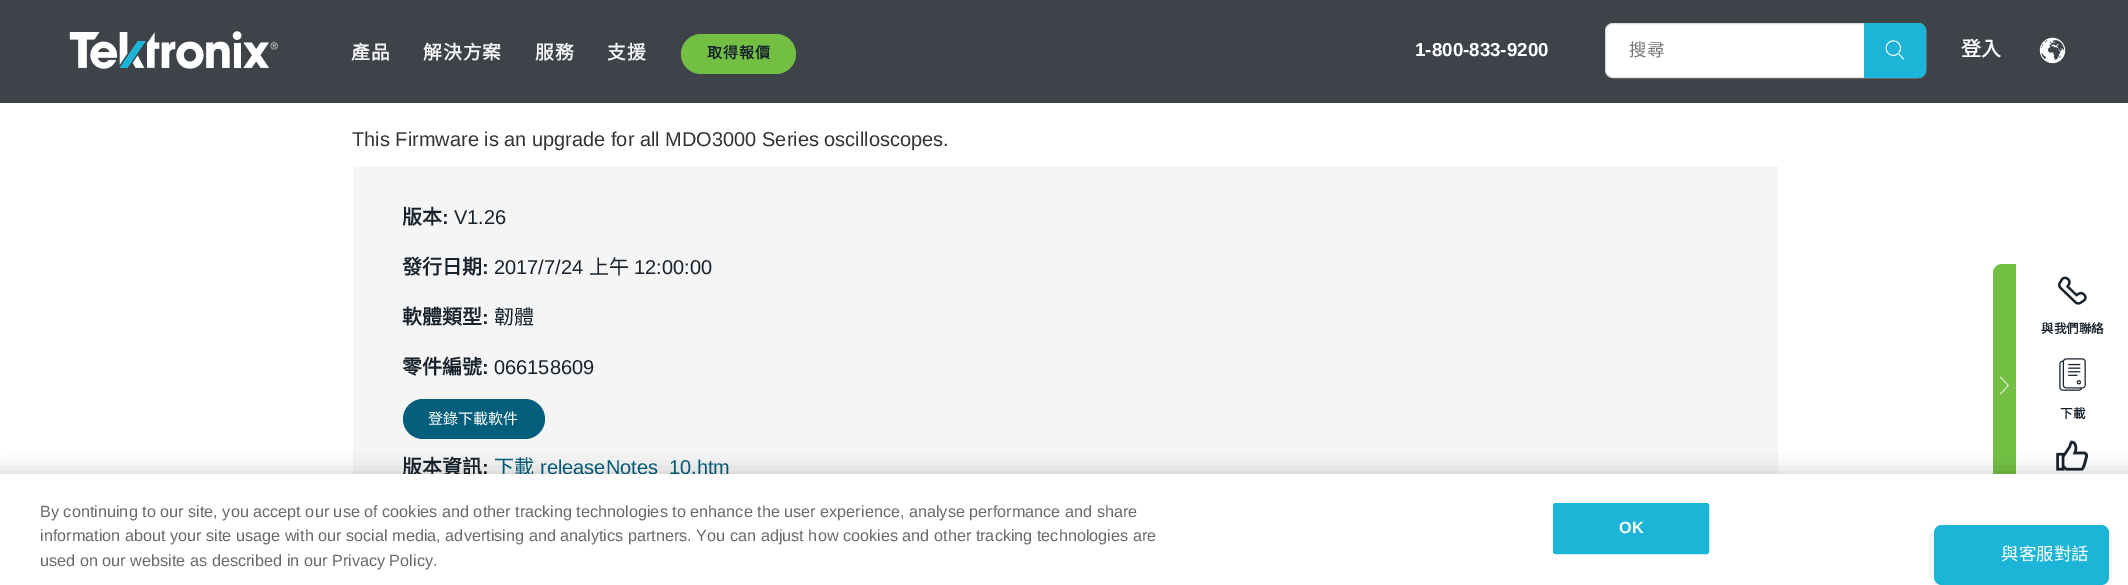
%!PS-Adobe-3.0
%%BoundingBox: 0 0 2128 585
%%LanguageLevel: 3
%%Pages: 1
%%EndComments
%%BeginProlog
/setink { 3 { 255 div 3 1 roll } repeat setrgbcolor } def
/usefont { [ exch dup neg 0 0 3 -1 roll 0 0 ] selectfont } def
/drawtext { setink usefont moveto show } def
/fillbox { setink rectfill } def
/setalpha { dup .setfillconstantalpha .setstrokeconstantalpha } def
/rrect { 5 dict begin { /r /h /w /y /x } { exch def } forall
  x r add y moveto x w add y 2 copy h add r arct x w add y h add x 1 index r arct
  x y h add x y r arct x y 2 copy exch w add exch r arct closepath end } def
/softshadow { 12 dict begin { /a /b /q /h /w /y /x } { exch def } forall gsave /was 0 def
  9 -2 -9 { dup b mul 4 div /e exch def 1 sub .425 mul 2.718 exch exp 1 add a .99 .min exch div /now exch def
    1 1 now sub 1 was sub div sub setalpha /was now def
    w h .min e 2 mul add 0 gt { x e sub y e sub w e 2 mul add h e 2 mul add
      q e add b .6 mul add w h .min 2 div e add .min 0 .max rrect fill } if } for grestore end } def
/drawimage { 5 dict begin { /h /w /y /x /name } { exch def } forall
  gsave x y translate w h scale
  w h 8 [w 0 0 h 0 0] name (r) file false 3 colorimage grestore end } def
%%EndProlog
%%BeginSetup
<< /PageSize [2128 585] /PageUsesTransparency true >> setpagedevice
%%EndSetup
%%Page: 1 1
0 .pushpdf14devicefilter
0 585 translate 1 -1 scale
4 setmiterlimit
0 0 2128 585 255 255 255 fillbox
0 0 2128 103 62 67 74 fillbox
(assets/img1.rgb) 69 31 209 38 drawimage
/NotoSansCJKTC-Bold 18.75 usefont
245 245 245 setink
351 59 moveto 1 0 (產品) ashow
423 59 moveto 1 0 (解決方案) ashow
535 59 moveto 1 0 (服務) ashow
607 59 moveto 1 0 (支援) ashow
115 191 68 setink
681 34 115 40 20 rrect fill
/NotoSansCJKTC-Bold 15 usefont
23 34 44 setink
707 58 moveto 1 0 (取得報價) ashow
(1-800-833-9200) 1415 56 /LiberationSans-Bold 18.75 255 255 255 drawtext
1605.5 23.5 320 54 7.5 rrect gsave fill grestore
221 221 221 setink
stroke
(搜尋) 1629 56 /NotoSansCJKTC-Regular 17.5 117 117 117 drawtext
28 181 216 setink
1864 23 moveto 1918 23 lineto 1922.5 23 1926 26.5 1926 31 curveto 1926 70 lineto 1926 74.5 1922.5 78 1918 78 curveto 1864 78 lineto closepath fill
(assets/img2.rgb) 1885 40 20 20 drawimage
(登入) 1961 56 /NotoSansCJKTC-Bold 20 255 255 255 drawtext
(assets/img3.rgb) 2039 37 27 27 drawimage
(This Firmware is an upgrade for all MDO3000 Series oscilloscopes.) 352 146 /LiberationSans-Regular 20 51 51 51 drawtext
353 166 1425 308 245 245 245 fillbox
(版本) 402 224 /NotoSansCJKTC-Bold 20 23 34 44 drawtext
(:) 442 224 /LiberationSans-Bold 20 23 34 44 drawtext
(V1.26) 454 224 /LiberationSans-Regular 20 23 34 44 drawtext
(發行日期) 402 274 /NotoSansCJKTC-Bold 20 23 34 44 drawtext
(:) 482 274 /LiberationSans-Bold 20 23 34 44 drawtext
(2017/7/24) 494 274 /LiberationSans-Regular 20 23 34 44 drawtext
(上午) 589 274 /NotoSansCJKTC-Regular 20 23 34 44 drawtext
(12:00:00) 634 274 /LiberationSans-Regular 20 23 34 44 drawtext
(軟體類型) 402 324 /NotoSansCJKTC-Bold 20 23 34 44 drawtext
(:) 482 324 /LiberationSans-Bold 20 23 34 44 drawtext
(韌體) 494 324 /NotoSansCJKTC-Regular 20 23 34 44 drawtext
(零件編號) 402 374 /NotoSansCJKTC-Bold 20 23 34 44 drawtext
(:) 482 374 /LiberationSans-Bold 20 23 34 44 drawtext
(066158609) 494 374 /LiberationSans-Regular 20 23 34 44 drawtext
3 94 124 setink
403 399 142 40 20 rrect fill
(登錄下載軟件) 428 424 /NotoSansCJKTC-Regular 15 255 255 255 drawtext
(版本資訊) 402 474 /NotoSansCJKTC-Bold 20 23 34 44 drawtext
(:) 482 474 /LiberationSans-Bold 20 23 34 44 drawtext
(下載) 494 474 /NotoSansCJKTC-Regular 20 3 94 124 drawtext
(releaseNotes_10.htm) 540 474 /LiberationSans-Regular 20 3 94 124 drawtext
115 191 68 setink
2002 264 moveto 2016 264 lineto 2016 510 lineto 2002 510 lineto 1997 510 1993 506 1993 501 curveto 1993 273 lineto 1993 268 1997 264 2002 264 curveto closepath fill
(assets/img4.rgb) 2000 376 9 19 drawimage
(assets/img5.rgb) 2058 276 29 29 drawimage
(與我們聯絡) 2041 333 /NotoSansCJKTC-Bold 12.5 23 34 44 drawtext
(assets/img6.rgb) 2059 358 27 33 drawimage
(下載) 2060 418 /NotoSansCJKTC-Bold 12.5 23 34 44 drawtext
(assets/img7.rgb) 2056 440 33 31 drawimage
0 0 0 setink
0 474 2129 111 0 11 0.2 softshadow
0 474 2128 111 255 255 255 fillbox
(By continuing to our site, you accept our use of cookies and other tracking technologies to enhance the user experience, analyse performance and share) 40 517 /LiberationSans-Regular 16.25 105 105 105 drawtext
(information about your site usage with our social media, advertising and analytics partners. You can adjust how cookies and other tracking technologies are) 40 541 /LiberationSans-Regular 16.25 105 105 105 drawtext
(used on our website as described in our Privacy Policy.) 40 566 /LiberationSans-Regular 16.25 105 105 105 drawtext
28 181 216 setink
1553.5 503.5 155 50 2 rrect gsave fill grestore
stroke
(OK) 1619 533 /LiberationSans-Bold 16.25 255 255 255 drawtext
21 22 24 setink
1934 530 175 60 8 4 0.05 softshadow
28 181 216 setink
1934 525 175 60 8 rrect fill
(與客服對話) 2001 560 /NotoSansCJKTC-Regular 17.5 255 255 255 drawtext
.poppdf14devicefilter showpage
%%EOF
